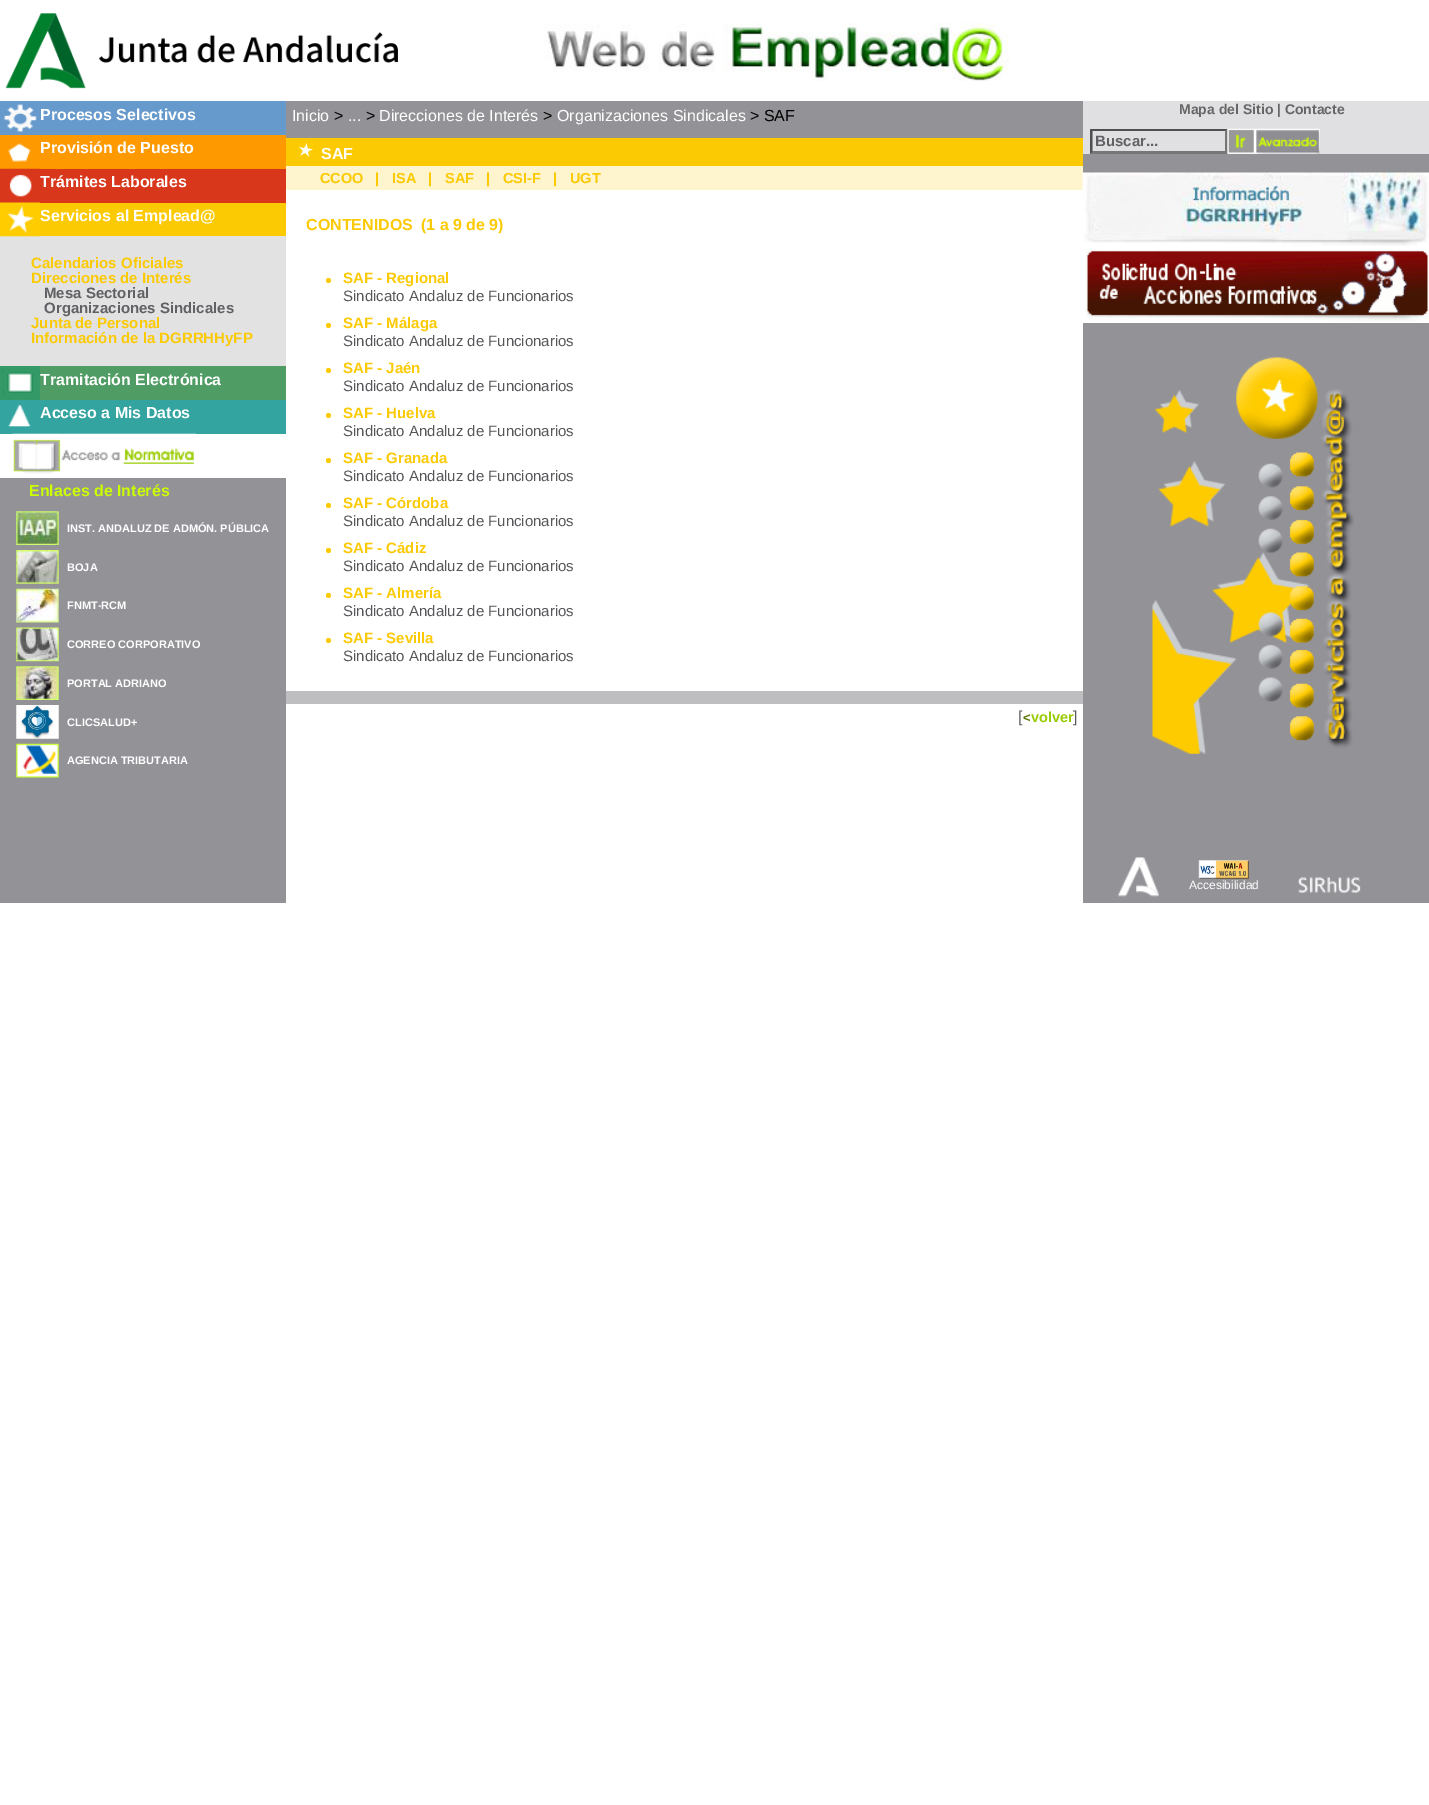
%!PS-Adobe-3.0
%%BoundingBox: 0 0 1429 1805
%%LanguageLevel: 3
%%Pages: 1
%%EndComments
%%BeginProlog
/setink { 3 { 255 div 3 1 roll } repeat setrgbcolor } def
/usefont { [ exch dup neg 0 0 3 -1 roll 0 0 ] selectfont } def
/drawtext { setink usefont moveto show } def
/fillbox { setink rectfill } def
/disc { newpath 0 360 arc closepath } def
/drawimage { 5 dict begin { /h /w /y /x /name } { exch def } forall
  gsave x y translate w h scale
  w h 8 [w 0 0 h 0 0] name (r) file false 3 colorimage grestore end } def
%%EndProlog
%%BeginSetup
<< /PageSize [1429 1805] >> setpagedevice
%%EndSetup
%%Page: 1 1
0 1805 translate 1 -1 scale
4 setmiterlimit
0 0 1429 1805 255 255 255 fillbox
(assets/img1.rgb) 5 13 393 76 drawimage
(assets/img2.rgb) 544 22 465 59 drawimage
0 478 286 425 147 146 151 fillbox
0 236 286 130 226 226 226 fillbox
0 101 286 34 102 153 204 fillbox
(assets/img3.rgb) 3 104 34 28 drawimage
(Procesos Selectivos) 40 120 /LiberationSans-Bold 16 255 255 255 drawtext
0 135 286 34 255 153 0 fillbox
(assets/img4.rgb) 8 143 23 19 drawimage
(Provisión de Puesto) 40 153 /LiberationSans-Bold 16 255 255 255 drawtext
0 169 286 34 216 55 27 fillbox
(assets/img5.rgb) 0 168 40 29 drawimage
(Trámites Laborales) 40 187 /LiberationSans-Bold 16 255 255 255 drawtext
40 203 246 33 252 202 3 fillbox
(assets/img6.rgb) 0 202 40 35 drawimage
(Servicios al Emplead@) 40 221 /LiberationSans-Bold 16 255 255 255 drawtext
(Calendarios Oficiales) 31 268 /LiberationSans-Bold 15 252 202 3 drawtext
(Direcciones de Interés) 31 283 /LiberationSans-Bold 15 252 202 3 drawtext
(Mesa Sectorial) 44 298 /LiberationSans-Bold 15 97 96 100 drawtext
(Organizaciones Sindicales) 44 313 /LiberationSans-Bold 15 97 96 100 drawtext
(Junta de Personal) 31 328 /LiberationSans-Bold 15 252 202 3 drawtext
(Información de la DGRRHHyFP) 31 343 /LiberationSans-Bold 15 252 202 3 drawtext
0 366 286 34 79 156 100 fillbox
(assets/img7.rgb) 0 366 40 34 drawimage
(Tramitación Electrónica) 40 385 /LiberationSans-Bold 16 255 255 255 drawtext
0 400 286 34 51 164 160 fillbox
(assets/img8.rgb) 8 404 23 23 drawimage
(Acceso a Mis Datos) 40 418 /LiberationSans-Bold 16 255 255 255 drawtext
(assets/img9.rgb) 12 433 185 41 drawimage
(Enlaces de Interés) 29 496 /LiberationSans-Bold 16 204 255 0 drawtext
(assets/img10.rgb) 16 511 43 34 drawimage
(INST. ANDALUZ DE ADMÓN. PÚBLICA) 67 532 /LiberationSans-Bold 11 255 255 255 drawtext
(assets/img11.rgb) 16 550 43 34 drawimage
(BOJA) 67 571 /LiberationSans-Bold 11 255 255 255 drawtext
(assets/img12.rgb) 16 588 43 35 drawimage
(FNMT-RCM) 67 609 /LiberationSans-Bold 11 255 255 255 drawtext
(assets/img13.rgb) 16 627 43 35 drawimage
(CORREO CORPORATIVO) 67 648 /LiberationSans-Bold 11 255 255 255 drawtext
(assets/img14.rgb) 16 666 43 34 drawimage
(PORTAL ADRIANO) 67 687 /LiberationSans-Bold 11 255 255 255 drawtext
(assets/img15.rgb) 16 705 43 34 drawimage
(CLICSALUD+) 67 726 /LiberationSans-Bold 11 255 255 255 drawtext
(assets/img16.rgb) 16 743 43 35 drawimage
(AGENCIA TRIBUTARIA) 67 764 /LiberationSans-Bold 11 255 255 255 drawtext
286 101 797 37 147 146 151 fillbox
(Inicio) 292 121 /LiberationSans-Regular 16 255 255 255 drawtext
(>) 334 121 /LiberationSans-Regular 16 0 0 0 drawtext
(...) 348 121 /LiberationSans-Regular 16 255 255 255 drawtext
(>) 366 121 /LiberationSans-Regular 16 0 0 0 drawtext
(Direcciones de Interés) 379 121 /LiberationSans-Regular 16 255 255 255 drawtext
(>) 543 121 /LiberationSans-Regular 16 0 0 0 drawtext
(Organizaciones Sindicales) 557 121 /LiberationSans-Regular 16 255 255 255 drawtext
(> SAF) 750 121 /LiberationSans-Regular 16 0 0 0 drawtext
286 138 797 28 252 202 3 fillbox
(assets/img17.rgb) 299 143 14 14 drawimage
(SAF) 321 159 /LiberationSans-Bold 16 255 255 255 drawtext
286 166 797 24 254 244 205 fillbox
(CCOO) 320 183 /LiberationSans-Bold 14.5 252 202 3 drawtext
(|) 375 183 /LiberationSans-Bold 14.5 252 202 3 drawtext
(ISA) 392 183 /LiberationSans-Bold 14.5 252 202 3 drawtext
(|) 428 183 /LiberationSans-Bold 14.5 252 202 3 drawtext
(SAF) 445 183 /LiberationSans-Bold 14.5 252 202 3 drawtext
(|) 486 183 /LiberationSans-Bold 14.5 252 202 3 drawtext
(CSI-F) 503 183 /LiberationSans-Bold 14.5 252 202 3 drawtext
(|) 553 183 /LiberationSans-Bold 14.5 252 202 3 drawtext
(UGT) 570 183 /LiberationSans-Bold 14.5 252 202 3 drawtext
(CONTENIDOS) 306 230 /LiberationSans-Bold 16 252 202 3 drawtext
(\(1 a 9 de 9\)) 421 230 /LiberationSans-Bold 16 252 202 3 drawtext
328.5 280.5 2.5 disc fill
(SAF - Regional) 343 283 /LiberationSans-Bold 15 252 202 3 drawtext
(Sindicato Andaluz de Funcionarios) 343 301 /LiberationSans-Regular 15 87 87 91 drawtext
252 202 3 setink
328.5 325.5 2.5 disc fill
(SAF - Málaga) 343 328 /LiberationSans-Bold 15 252 202 3 drawtext
(Sindicato Andaluz de Funcionarios) 343 346 /LiberationSans-Regular 15 87 87 91 drawtext
252 202 3 setink
328.5 370.5 2.5 disc fill
(SAF - Jaén) 343 373 /LiberationSans-Bold 15 252 202 3 drawtext
(Sindicato Andaluz de Funcionarios) 343 391 /LiberationSans-Regular 15 87 87 91 drawtext
252 202 3 setink
328.5 415.5 2.5 disc fill
(SAF - Huelva) 343 418 /LiberationSans-Bold 15 252 202 3 drawtext
(Sindicato Andaluz de Funcionarios) 343 436 /LiberationSans-Regular 15 87 87 91 drawtext
252 202 3 setink
328.5 460.5 2.5 disc fill
(SAF - Granada) 343 463 /LiberationSans-Bold 15 252 202 3 drawtext
(Sindicato Andaluz de Funcionarios) 343 481 /LiberationSans-Regular 15 87 87 91 drawtext
252 202 3 setink
328.5 505.5 2.5 disc fill
(SAF - Córdoba) 343 508 /LiberationSans-Bold 15 252 202 3 drawtext
(Sindicato Andaluz de Funcionarios) 343 526 /LiberationSans-Regular 15 87 87 91 drawtext
252 202 3 setink
328.5 550.5 2.5 disc fill
(SAF - Cádiz) 343 553 /LiberationSans-Bold 15 252 202 3 drawtext
(Sindicato Andaluz de Funcionarios) 343 571 /LiberationSans-Regular 15 87 87 91 drawtext
252 202 3 setink
328.5 595.5 2.5 disc fill
(SAF - Almería) 343 598 /LiberationSans-Bold 15 252 202 3 drawtext
(Sindicato Andaluz de Funcionarios) 343 616 /LiberationSans-Regular 15 87 87 91 drawtext
252 202 3 setink
328.5 640.5 2.5 disc fill
(SAF - Sevilla) 343 643 /LiberationSans-Bold 15 252 202 3 drawtext
(Sindicato Andaluz de Funcionarios) 343 661 /LiberationSans-Regular 15 87 87 91 drawtext
286 691 797 13 190 190 193 fillbox
([) 1018 722 /LiberationSans-Regular 16 87 87 91 drawtext
(<) 1023 722 /LiberationSans-Bold 13 88 117 0 drawtext
(volver) 1031 722 /LiberationSans-Bold 14.5 153 204 0 drawtext
(]) 1073 722 /LiberationSans-Regular 16 87 87 91 drawtext
1083 154 346 749 147 146 151 fillbox
1083 101 346 53 224 223 225 fillbox
(Mapa del Sitio | Contacte) 1179 114 /LiberationSans-Bold 14 102 102 102 drawtext
79 79 79 setink
1090 129 moveto 1228 129 lineto 1225 131 lineto 1092 131 lineto closepath fill
118 118 118 setink
1227.5 129 moveto 1227.5 154 lineto 1225 151 lineto 1225 131 lineto closepath fill
1228 154 moveto 1090 154 lineto 1092 151 lineto 1225 151 lineto closepath fill
79 79 79 setink
1090 154 moveto 1090 129 lineto 1092.5 131 lineto 1092.5 151 lineto closepath fill
(Buscar...) 1095 146 /LiberationSans-Bold 15 97 96 100 drawtext
(assets/img18.rgb) 1227 128 28 26 drawimage
(assets/img19.rgb) 1255 128 65 26 drawimage
1083 246 346 77 255 255 255 fillbox
(assets/img20.rgb) 1082 172 347 74 drawimage
(assets/img21.rgb) 1085 249 344 73 drawimage
(assets/img22.rgb) 1152 357 202 397 drawimage
(assets/img23.rgb) 1117 857 42 40 drawimage
(assets/img24.rgb) 1198 860 51 19 drawimage
(Accesibilidad) 1189 889 /LiberationSans-Regular 12 255 255 255 drawtext
(assets/img25.rgb) 1298 877 63 16 drawimage
showpage
%%EOF
